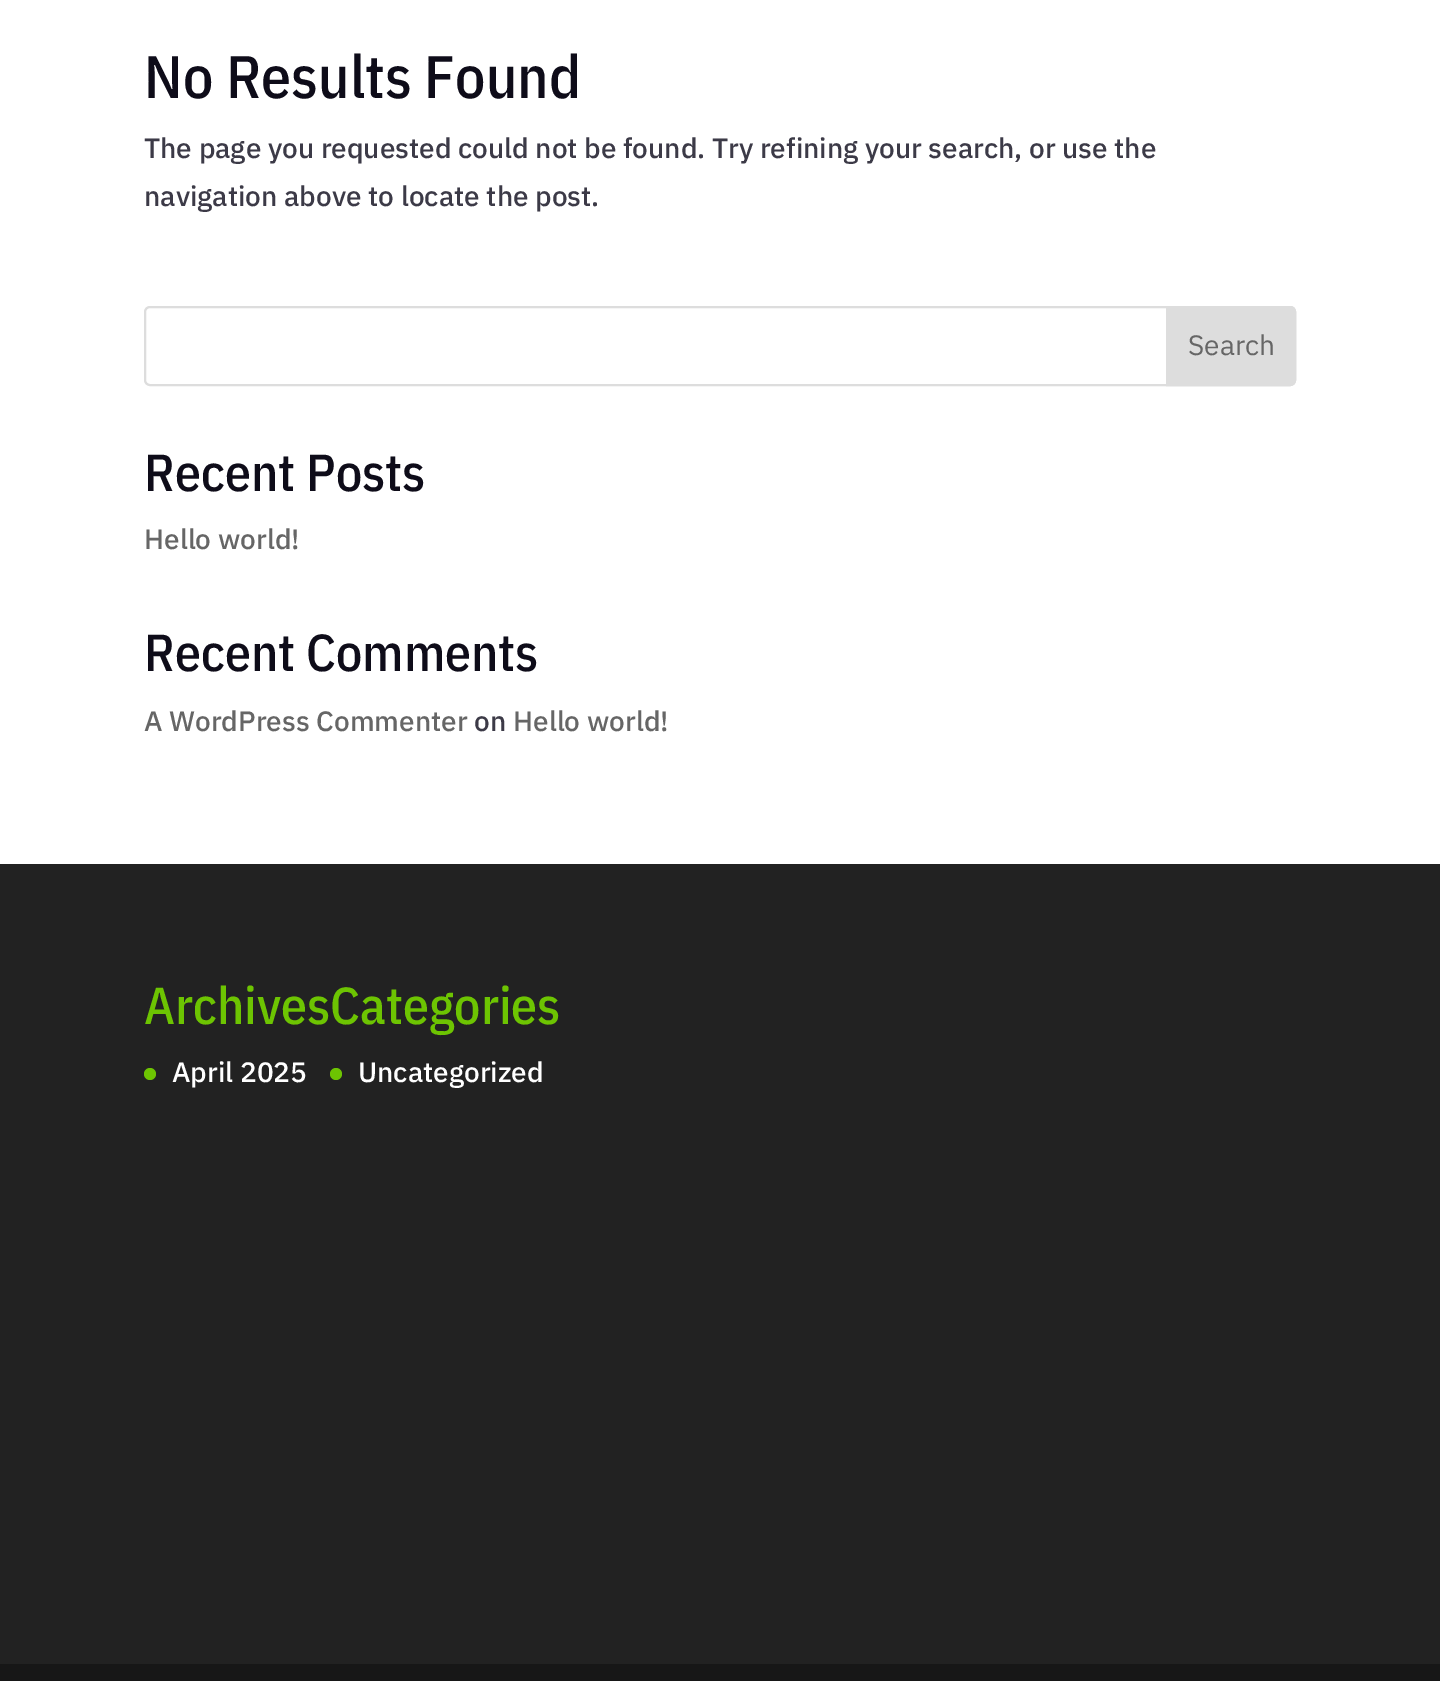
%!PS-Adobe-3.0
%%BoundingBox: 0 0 1440 1681
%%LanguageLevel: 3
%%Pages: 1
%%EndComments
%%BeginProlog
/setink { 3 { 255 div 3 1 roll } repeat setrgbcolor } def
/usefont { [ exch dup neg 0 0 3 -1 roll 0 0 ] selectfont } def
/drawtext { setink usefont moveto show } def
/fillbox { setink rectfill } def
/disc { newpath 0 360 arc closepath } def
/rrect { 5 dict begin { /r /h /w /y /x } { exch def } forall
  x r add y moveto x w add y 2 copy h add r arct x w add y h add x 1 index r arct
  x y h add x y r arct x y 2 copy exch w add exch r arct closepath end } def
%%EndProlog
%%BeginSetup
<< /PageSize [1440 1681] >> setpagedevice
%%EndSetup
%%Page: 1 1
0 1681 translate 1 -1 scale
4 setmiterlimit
0 0 1440 1681 255 255 255 fillbox
(No Results Found) 144 98 /IBMPlexSansCondensed-Medium 60 14 12 25 drawtext
(The page you requested could not be found. Try refining your search, or use the) 144 158 /IBMPlexSans-Medium 28 60 58 71 drawtext
(navigation above to locate the post.) 144 206 /IBMPlexSans-Medium 28 60 58 71 drawtext
221 221 221 setink
2 setlinewidth
145 307 1150 78 5 rrect stroke
1167 307 moveto 1290 307 lineto 1293 307 1295 309 1295 312 curveto 1295 380 lineto 1295 383 1293 385 1290 385 curveto 1167 385 lineto closepath gsave fill grestore
stroke
(Search) 1188 355 /IBMPlexSans-Regular 28 102 102 102 drawtext
(Recent Posts) 144 491 /IBMPlexSansCondensed-Medium 52 14 12 25 drawtext
(Hello world!) 144 549 /IBMPlexSans-Medium 28 102 102 102 drawtext
(Recent Comments) 144 671 /IBMPlexSansCondensed-Medium 52 14 12 25 drawtext
(A WordPress Commenter) 144 731 /IBMPlexSans-Medium 28 102 102 102 drawtext
(on) 474 731 /IBMPlexSans-Medium 28 60 58 71 drawtext
(Hello world!) 513 731 /IBMPlexSans-Medium 28 102 102 102 drawtext
0 864 1440 800 34 34 34 fillbox
(ArchivesCategories) 144 1024 /IBMPlexSansCondensed-Medium 52 109 196 2 drawtext
150 1074 6 disc fill
(April 2025) 172 1082 /IBMPlexSans-Medium 28 255 255 255 drawtext
109 196 2 setink
336 1074 6 disc fill
(Uncategorized) 358 1082 /IBMPlexSans-Medium 28 255 255 255 drawtext
0 1664 1440 17 23 23 23 fillbox
showpage
%%EOF
